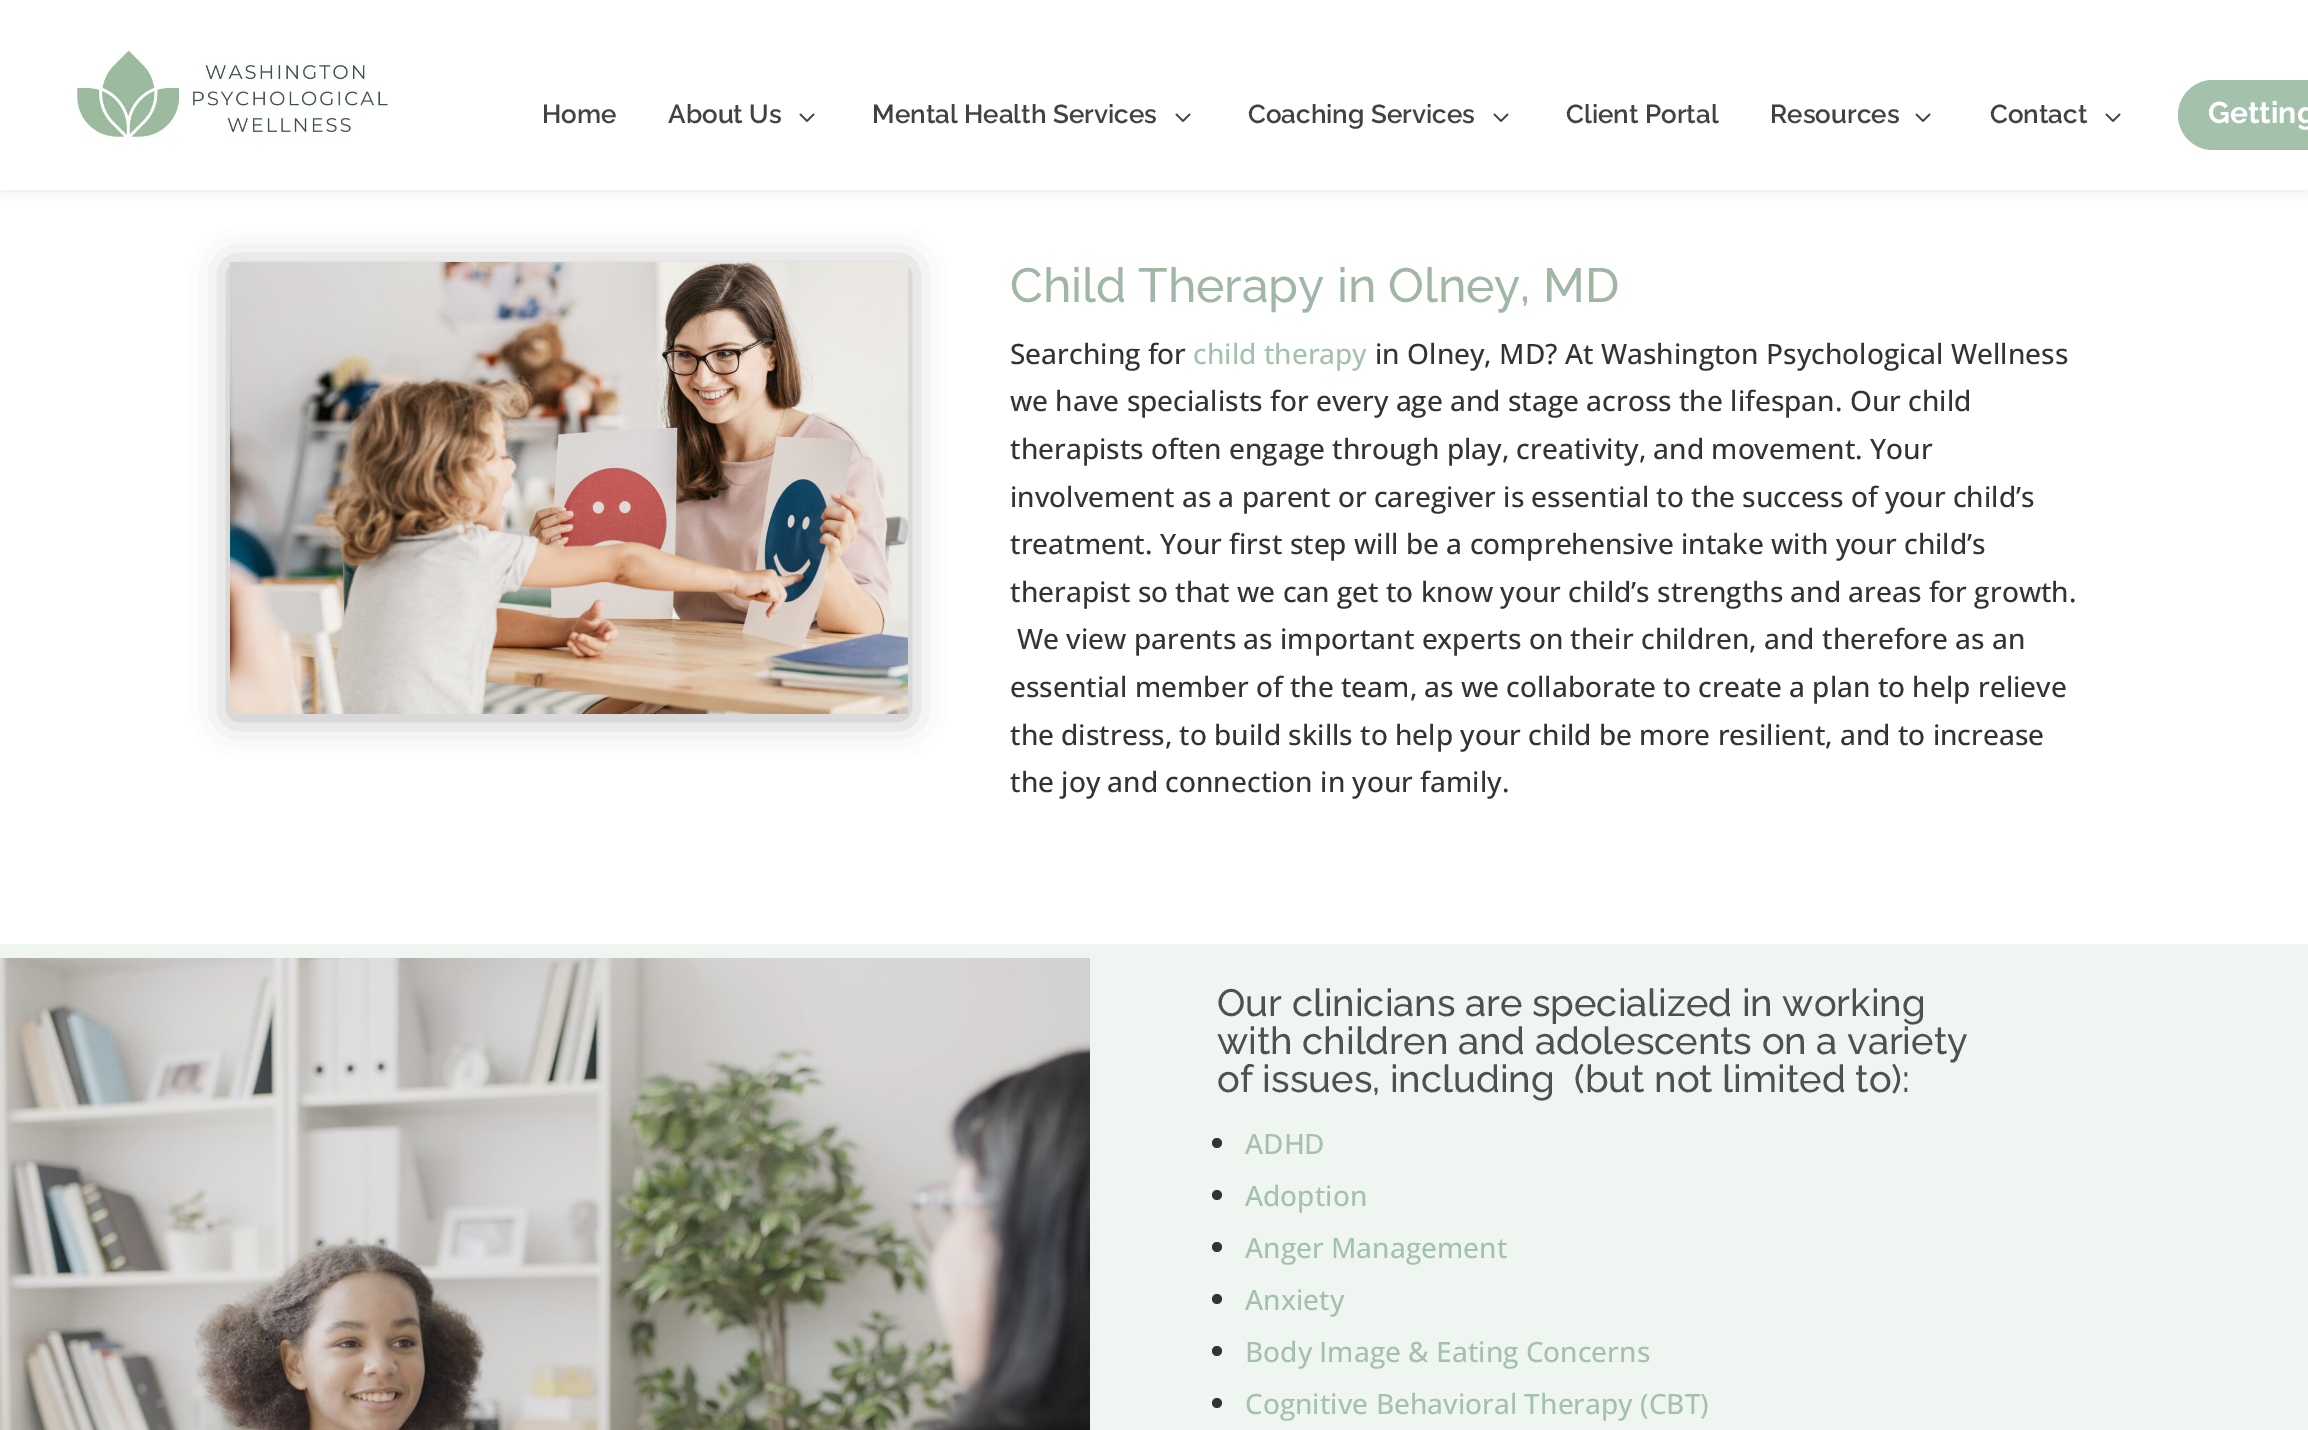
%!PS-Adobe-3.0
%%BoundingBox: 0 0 2308 1430
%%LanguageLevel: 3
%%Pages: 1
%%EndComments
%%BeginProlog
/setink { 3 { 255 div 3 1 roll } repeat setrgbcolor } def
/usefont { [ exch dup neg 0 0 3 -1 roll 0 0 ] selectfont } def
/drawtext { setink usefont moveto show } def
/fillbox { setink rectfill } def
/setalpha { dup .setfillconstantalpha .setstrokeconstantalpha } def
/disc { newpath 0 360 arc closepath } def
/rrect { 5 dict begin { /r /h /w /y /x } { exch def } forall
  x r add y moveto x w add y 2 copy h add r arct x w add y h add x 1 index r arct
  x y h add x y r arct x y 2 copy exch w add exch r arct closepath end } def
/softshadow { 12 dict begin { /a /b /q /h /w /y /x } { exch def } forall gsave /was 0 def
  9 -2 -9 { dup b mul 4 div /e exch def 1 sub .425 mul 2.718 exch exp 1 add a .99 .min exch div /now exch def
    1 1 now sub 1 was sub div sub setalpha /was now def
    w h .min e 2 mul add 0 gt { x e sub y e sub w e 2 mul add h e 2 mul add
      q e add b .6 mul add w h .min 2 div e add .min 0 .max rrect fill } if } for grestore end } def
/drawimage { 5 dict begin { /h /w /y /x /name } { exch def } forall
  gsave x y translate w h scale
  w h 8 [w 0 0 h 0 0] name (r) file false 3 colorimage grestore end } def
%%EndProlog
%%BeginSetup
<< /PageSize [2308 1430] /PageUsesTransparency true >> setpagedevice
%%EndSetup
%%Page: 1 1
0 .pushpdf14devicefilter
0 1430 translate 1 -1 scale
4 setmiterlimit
0 0 2308 1430 255 255 255 fillbox
0 0 0 setink
0 0 2308 190 0 7 0.1 softshadow
0 0 2308 190 255 255 255 fillbox
(assets/img1.rgb) 77 50 312 87 drawimage
(Home) 542 123 /Raleway-SemiBold 26 66 66 66 drawtext
(About Us) 668 123 /Raleway-SemiBold 26 66 66 66 drawtext
(assets/img2.rgb) 799 113 16 9 drawimage
(Mental Health Services) 872 123 /Raleway-SemiBold 26 66 66 66 drawtext
(assets/img2.rgb) 1175 113 16 9 drawimage
(Coaching Services) 1248 123 /Raleway-SemiBold 26 66 66 66 drawtext
(assets/img2.rgb) 1493 113 16 9 drawimage
(Client Portal) 1566 123 /Raleway-SemiBold 26 66 66 66 drawtext
(Resources) 1770 123 /Raleway-SemiBold 26 66 66 66 drawtext
(assets/img2.rgb) 1915 113 16 9 drawimage
(Contact) 1990 123 /Raleway-SemiBold 26 66 66 66 drawtext
(assets/img2.rgb) 2105 113 16 9 drawimage
164 193 172 setink
2178 80 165 70 35 rrect fill
(Getting) 2208 123 /Raleway-Bold 30 255 255 255 drawtext
0 0 0 setink
230 266 678 452 0 18 0.3 softshadow
(assets/img3.rgb) 230 262 678 452 drawimage
(Child Therapy in Olney, MD) 1010 302 /Raleway-Medium 48 160 183 166 drawtext
(Searching for) 1010 364 /OpenSans-Medium 28 51 51 51 drawtext
(child therapy) 1193 364 /OpenSans-Medium 28 164 193 172 drawtext
(in Olney, MD? At Washington Psychological Wellness) 1375 364 /OpenSans-Medium 28 51 51 51 drawtext
(we have specialists for every age and stage across the lifespan. Our child) 1010 411 /OpenSans-Medium 28 51 51 51 drawtext
(therapists often engage through play, creativity, and movement. Your) 1010 459 /OpenSans-Medium 28 51 51 51 drawtext
(involvement as a parent or caregiver is essential to the success of your child’s) 1010 507 /OpenSans-Medium 28 51 51 51 drawtext
(treatment. Your first step will be a comprehensive intake with your child’s) 1010 554 /OpenSans-Medium 28 51 51 51 drawtext
(therapist so that we can get to know your child’s strengths and areas for growth.) 1010 602 /OpenSans-Medium 28 51 51 51 drawtext
(We view parents as important experts on their children, and therefore as an) 1017 649 /OpenSans-Medium 28 51 51 51 drawtext
(essential member of the team, as we collaborate to create a plan to help relieve) 1010 697 /OpenSans-Medium 28 51 51 51 drawtext
(the distress, to build skills to help your child be more resilient, and to increase) 1010 745 /OpenSans-Medium 28 51 51 51 drawtext
(the joy and connection in your family.) 1010 792 /OpenSans-Medium 28 51 51 51 drawtext
0 944 2308 486 239 245 241 fillbox
(assets/img4.rgb) 0 958 1090 472 drawimage
(Our clinicians are specialized in working) 1217 1016 /Raleway-Medium 38 80 80 80 drawtext
(with children and adolescents on a variety) 1217 1054 /Raleway-Medium 38 80 80 80 drawtext
(of issues, including) 1217 1092 /Raleway-Medium 38 80 80 80 drawtext
(\(but not limited to\):) 1574 1092 /Raleway-Medium 38 80 80 80 drawtext
51 51 51 setink
1217 1143 5 disc fill
(ADHD) 1245 1154 /OpenSans-Medium 28 164 193 172 drawtext
51 51 51 setink
1217 1195 5 disc fill
(Adoption) 1245 1206 /OpenSans-Medium 28 164 193 172 drawtext
51 51 51 setink
1217 1247 5 disc fill
(Anger Management) 1245 1258 /OpenSans-Medium 28 164 193 172 drawtext
51 51 51 setink
1217 1299 5 disc fill
(Anxiety) 1245 1310 /OpenSans-Medium 28 164 193 172 drawtext
51 51 51 setink
1217 1351 5 disc fill
(Body Image & Eating Concerns) 1245 1362 /OpenSans-Medium 28 164 193 172 drawtext
51 51 51 setink
1217 1403 5 disc fill
(Cognitive Behavioral Therapy \(CBT\)) 1245 1414 /OpenSans-Medium 28 164 193 172 drawtext
.poppdf14devicefilter showpage
%%EOF
